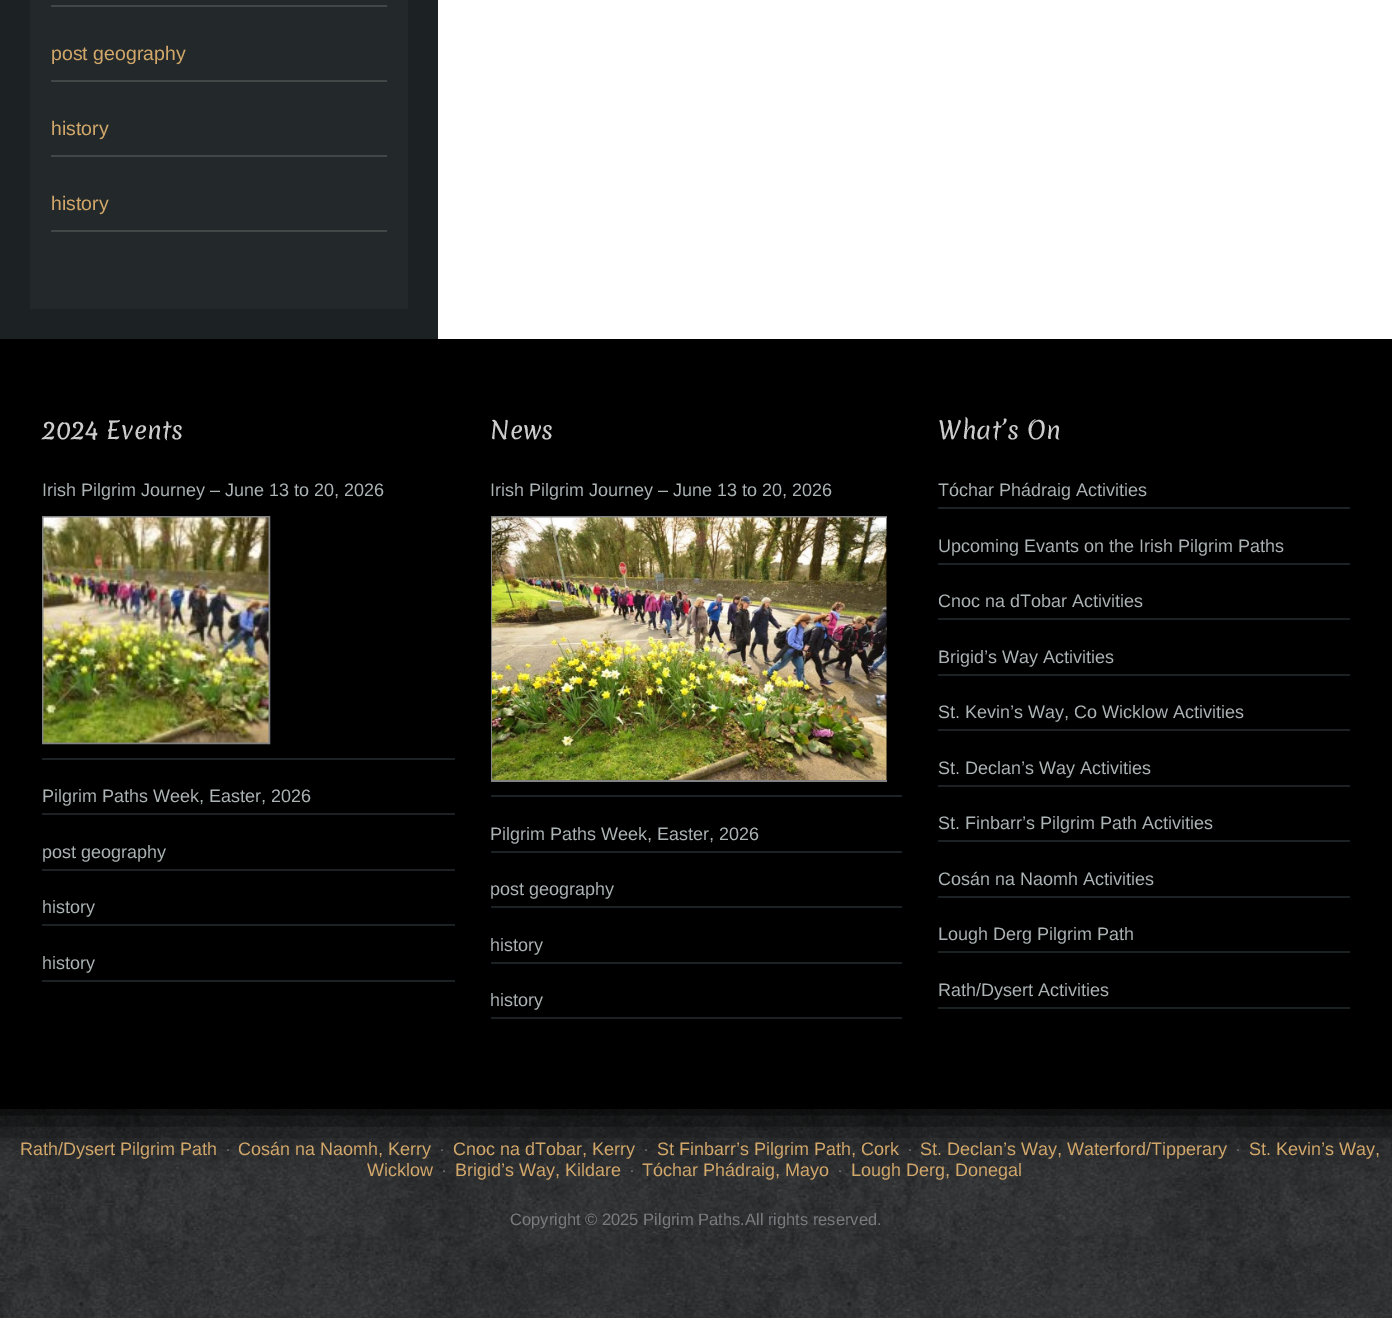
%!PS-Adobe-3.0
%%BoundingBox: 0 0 1392 1318
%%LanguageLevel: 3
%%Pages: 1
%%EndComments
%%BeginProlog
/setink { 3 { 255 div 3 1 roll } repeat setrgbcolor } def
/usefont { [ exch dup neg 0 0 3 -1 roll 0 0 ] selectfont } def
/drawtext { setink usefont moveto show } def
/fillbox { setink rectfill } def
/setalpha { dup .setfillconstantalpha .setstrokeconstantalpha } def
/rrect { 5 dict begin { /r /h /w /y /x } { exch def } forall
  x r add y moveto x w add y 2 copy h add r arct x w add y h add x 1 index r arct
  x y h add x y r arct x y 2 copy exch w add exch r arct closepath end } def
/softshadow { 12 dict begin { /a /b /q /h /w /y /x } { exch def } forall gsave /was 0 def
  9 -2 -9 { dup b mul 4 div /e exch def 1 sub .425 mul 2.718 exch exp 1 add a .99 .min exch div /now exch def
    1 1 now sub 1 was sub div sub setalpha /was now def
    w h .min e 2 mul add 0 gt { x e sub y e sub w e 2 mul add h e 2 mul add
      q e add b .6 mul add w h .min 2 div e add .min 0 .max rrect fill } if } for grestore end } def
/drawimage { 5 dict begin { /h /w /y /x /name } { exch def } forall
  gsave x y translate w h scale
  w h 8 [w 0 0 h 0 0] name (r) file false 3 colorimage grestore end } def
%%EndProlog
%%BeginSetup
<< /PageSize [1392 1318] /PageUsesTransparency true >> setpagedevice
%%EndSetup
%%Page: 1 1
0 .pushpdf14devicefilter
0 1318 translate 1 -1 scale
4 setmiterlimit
0 0 1392 1318 255 255 255 fillbox
(assets/img1.rgb) 0 1109 1392 209 drawimage
0 0 0 setink
-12 -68 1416 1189 0 22.5 1 softshadow
438 0 954 339 255 255 255 fillbox
0 0 438 339 28 33 35 fillbox
30 0 378 309 35 41 42 fillbox
51 5 336 2 66 71 72 fillbox
51 80 336 2 66 71 72 fillbox
(post geography) 51 60 /LiberationSans-Regular 19.5 210 167 106 drawtext
51 155 336 2 66 71 72 fillbox
(history) 51 135 /LiberationSans-Regular 19.5 210 167 106 drawtext
51 230 336 2 66 71 72 fillbox
(history) 51 210 /LiberationSans-Regular 19.5 210 167 106 drawtext
0 339 1392 770 0 0 0 fillbox
(2024 Events) 42 439 /Merienda-Regular 24 204 204 204 drawtext
42 758 413 2 28 33 35 fillbox
(Irish Pilgrim Journey – June 13 to 20, 2026) 42 496 /LiberationSans-Regular 18 171 179 180 drawtext
131 131 131 setink
2 setlinewidth
43 517 226 226 rectstroke
(assets/img2.rgb) 43 517 226 226 drawimage
42 813 413 2 28 33 35 fillbox
(Pilgrim Paths Week, Easter, 2026) 42 802 /LiberationSans-Regular 18 171 179 180 drawtext
42 869 413 2 28 33 35 fillbox
(post geography) 42 858 /LiberationSans-Regular 18 171 179 180 drawtext
42 924 413 2 28 33 35 fillbox
(history) 42 913 /LiberationSans-Regular 18 171 179 180 drawtext
42 980 413 2 28 33 35 fillbox
(history) 42 969 /LiberationSans-Regular 18 171 179 180 drawtext
(News) 490 439 /Merienda-Regular 24 204 204 204 drawtext
491 795 411 2 28 33 35 fillbox
(Irish Pilgrim Journey – June 13 to 20, 2026) 490 496 /LiberationSans-Regular 18 171 179 180 drawtext
gsave
491 516 396 266 rectclip
131 131 131 setink
492 517 397 264 rectstroke
grestore
(assets/img3.rgb) 492 517 395 263 drawimage
491 851 411 2 28 33 35 fillbox
(Pilgrim Paths Week, Easter, 2026) 490 840 /LiberationSans-Regular 18 171 179 180 drawtext
491 906 411 2 28 33 35 fillbox
(post geography) 490 895 /LiberationSans-Regular 18 171 179 180 drawtext
491 962 411 2 28 33 35 fillbox
(history) 490 951 /LiberationSans-Regular 18 171 179 180 drawtext
491 1017 411 2 28 33 35 fillbox
(history) 490 1006 /LiberationSans-Regular 18 171 179 180 drawtext
(What’s On) 938 439 /Merienda-Regular 24 204 204 204 drawtext
938 507 412 2 28 33 35 fillbox
(Tóchar Phádraig Activities) 938 496 /LiberationSans-Regular 18 171 179 180 drawtext
938 563 412 2 28 33 35 fillbox
(Upcoming Evants on the Irish Pilgrim Paths) 938 552 /LiberationSans-Regular 18 171 179 180 drawtext
938 618 412 2 28 33 35 fillbox
(Cnoc na dTobar Activities) 938 607 /LiberationSans-Regular 18 171 179 180 drawtext
938 674 412 2 28 33 35 fillbox
(Brigid’s Way Activities) 938 663 /LiberationSans-Regular 18 171 179 180 drawtext
938 729 412 2 28 33 35 fillbox
(St. Kevin’s Way, Co Wicklow Activities) 938 718 /LiberationSans-Regular 18 171 179 180 drawtext
938 785 412 2 28 33 35 fillbox
(St. Declan’s Way Activities) 938 774 /LiberationSans-Regular 18 171 179 180 drawtext
938 840 412 2 28 33 35 fillbox
(St. Finbarr’s Pilgrim Path Activities) 938 829 /LiberationSans-Regular 18 171 179 180 drawtext
938 896 412 2 28 33 35 fillbox
(Cosán na Naomh Activities) 938 885 /LiberationSans-Regular 18 171 179 180 drawtext
938 951 412 2 28 33 35 fillbox
(Lough Derg Pilgrim Path) 938 940 /LiberationSans-Regular 18 171 179 180 drawtext
938 1007 412 2 28 33 35 fillbox
(Rath/Dysert Activities) 938 996 /LiberationSans-Regular 18 171 179 180 drawtext
(Rath/Dysert Pilgrim Path) 20 1155 /LiberationSans-Regular 18 210 167 106 drawtext
(·) 225 1155 /LiberationSans-Regular 18 120 124 127 drawtext
(Cosán na Naomh, Kerry) 238 1155 /LiberationSans-Regular 18 210 167 106 drawtext
(·) 439 1155 /LiberationSans-Regular 18 120 124 127 drawtext
(Cnoc na dTobar, Kerry) 453 1155 /LiberationSans-Regular 18 210 167 106 drawtext
(·) 643 1155 /LiberationSans-Regular 18 120 124 127 drawtext
(St Finbarr’s Pilgrim Path, Cork) 657 1155 /LiberationSans-Regular 18 210 167 106 drawtext
(·) 907 1155 /LiberationSans-Regular 18 120 124 127 drawtext
(St. Declan’s Way, Waterford/Tipperary) 920 1155 /LiberationSans-Regular 18 210 167 106 drawtext
(·) 1235 1155 /LiberationSans-Regular 18 120 124 127 drawtext
(St. Kevin’s Way,) 1249 1155 /LiberationSans-Regular 18 210 167 106 drawtext
(Wicklow) 367 1176 /LiberationSans-Regular 18 210 167 106 drawtext
(·) 441 1176 /LiberationSans-Regular 18 120 124 127 drawtext
(Brigid’s Way, Kildare) 455 1176 /LiberationSans-Regular 18 210 167 106 drawtext
(·) 629 1176 /LiberationSans-Regular 18 120 124 127 drawtext
(Tóchar Phádraig, Mayo) 642 1176 /LiberationSans-Regular 18 210 167 106 drawtext
(·) 837 1176 /LiberationSans-Regular 18 120 124 127 drawtext
(Lough Derg, Donegal) 851 1176 /LiberationSans-Regular 18 210 167 106 drawtext
(Copyright © 2025 Pilgrim Paths.All rights reserved.) 510 1225 /LiberationSans-Regular 16.5 120 124 127 drawtext
.poppdf14devicefilter showpage
%%EOF
